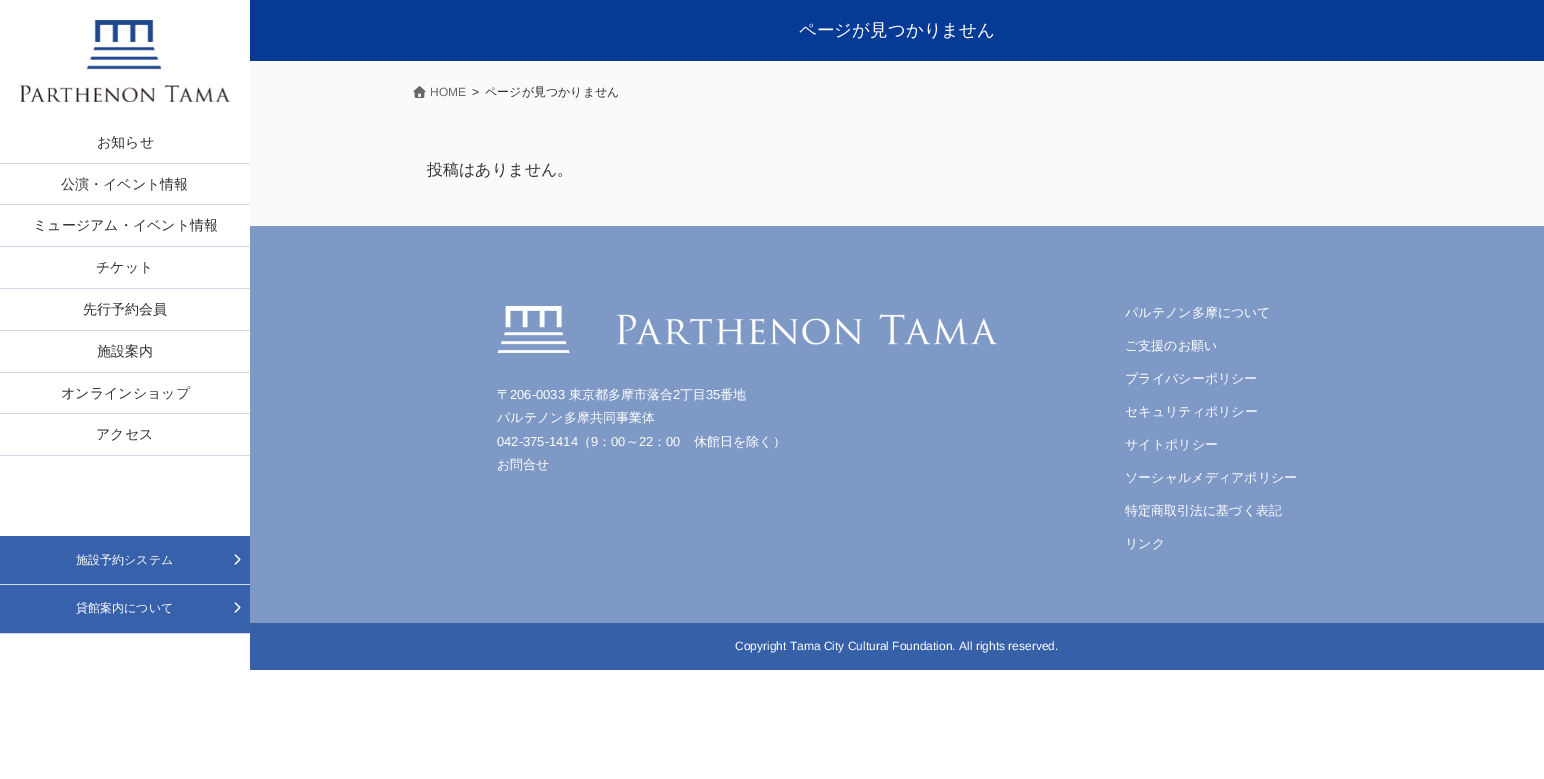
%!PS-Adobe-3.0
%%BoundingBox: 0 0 1544 779
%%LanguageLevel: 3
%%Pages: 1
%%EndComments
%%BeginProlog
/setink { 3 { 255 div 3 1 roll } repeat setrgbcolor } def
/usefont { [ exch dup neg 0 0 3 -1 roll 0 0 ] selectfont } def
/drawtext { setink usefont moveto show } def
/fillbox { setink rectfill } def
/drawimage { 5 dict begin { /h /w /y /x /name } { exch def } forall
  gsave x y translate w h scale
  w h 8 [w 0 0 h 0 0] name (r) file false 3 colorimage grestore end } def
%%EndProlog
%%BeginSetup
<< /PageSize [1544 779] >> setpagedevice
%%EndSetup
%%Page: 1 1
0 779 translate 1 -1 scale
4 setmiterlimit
0 0 1544 779 255 255 255 fillbox
(assets/img1.rgb) 20 20 210 82 drawimage
0 163 250 1 205 216 234 fillbox
(お知らせ) 97 147 /WenQuanYiZenHei-Medium 14 51 51 51 drawtext
0 204 250 1 205 216 234 fillbox
(公演・イベント情報) 61 189 /WenQuanYiZenHei-Medium 14 51 51 51 drawtext
0 246 250 1 205 216 234 fillbox
(ミュージアム・イベント情報) 33 230 /WenQuanYiZenHei-Medium 14 51 51 51 drawtext
0 288 250 1 205 216 234 fillbox
(チケット) 96 272 /WenQuanYiZenHei-Medium 14 51 51 51 drawtext
0 330 250 1 205 216 234 fillbox
(先行予約会員) 83 314 /WenQuanYiZenHei-Medium 14 51 51 51 drawtext
0 372 250 1 205 216 234 fillbox
(施設案内) 97 356 /WenQuanYiZenHei-Medium 14 51 51 51 drawtext
0 413 250 1 205 216 234 fillbox
(オンラインショップ) 61 398 /WenQuanYiZenHei-Medium 14 51 51 51 drawtext
0 455 250 1 205 216 234 fillbox
(アクセス) 96 439 /WenQuanYiZenHei-Medium 14 51 51 51 drawtext
0 584 250 1 205 216 234 fillbox
0 536 250 48 55 97 170 fillbox
(施設予約システム) 76 564 /WenQuanYiZenHei-Medium 12 255 255 255 drawtext
(assets/img2.rgb) 234 554 7 11 drawimage
0 633 250 1 205 216 234 fillbox
0 585 250 48 55 97 170 fillbox
(貸館案内について) 76 612 /WenQuanYiZenHei-Medium 12 255 255 255 drawtext
(assets/img2.rgb) 234 602 7 11 drawimage
250 61 1294 165 250 250 250 fillbox
250 0 1294 61 5 58 149 fillbox
(ページが見つかりません) 799 36 /WenQuanYiZenHei-Medium 17.5 255 255 255 drawtext
(assets/img3.rgb) 413 86 13 12 drawimage
(HOME) 430 96 /LiberationSans-Regular 12 102 102 102 drawtext
(>) 472 96 /LiberationSans-Regular 12 51 51 51 drawtext
(ページが見つかりません) 485 96 /WenQuanYiZenHei-Medium 12 51 51 51 drawtext
(投稿はありません。) 427 175 /WenQuanYiZenHei-Medium 16 51 51 51 drawtext
250 226 1294 397 127 153 199 fillbox
(assets/img4.rgb) 497 306 500 47 drawimage
(〒) 497 399 /WenQuanYiZenHei-Medium 13 255 255 255 drawtext
(206-0033) 510 399 /LiberationSans-Regular 13 255 255 255 drawtext
(東京都多摩市落合) 569 399 /WenQuanYiZenHei-Medium 13 255 255 255 drawtext
(2) 673 399 /LiberationSans-Regular 13 255 255 255 drawtext
(丁目) 680 399 /WenQuanYiZenHei-Medium 13 255 255 255 drawtext
(35) 706 399 /LiberationSans-Regular 13 255 255 255 drawtext
(番地) 720 399 /WenQuanYiZenHei-Medium 13 255 255 255 drawtext
(パルテノン多摩共同事業体) 497 422 /WenQuanYiZenHei-Medium 13 255 255 255 drawtext
(042-375-1414) 497 446 /LiberationSans-Regular 13 255 255 255 drawtext
(（) 578 446 /WenQuanYiZenHei-Medium 13 255 255 255 drawtext
(9) 591 446 /LiberationSans-Regular 13 255 255 255 drawtext
(：) 598 446 /WenQuanYiZenHei-Medium 13 255 255 255 drawtext
(00) 611 446 /LiberationSans-Regular 13 255 255 255 drawtext
(～) 626 446 /WenQuanYiZenHei-Medium 13 255 255 255 drawtext
(22) 639 446 /LiberationSans-Regular 13 255 255 255 drawtext
(：) 653 446 /WenQuanYiZenHei-Medium 13 255 255 255 drawtext
(00) 666 446 /LiberationSans-Regular 13 255 255 255 drawtext
(休館日を除く）) 694 446 /WenQuanYiZenHei-Medium 13 255 255 255 drawtext
(お問合せ) 497 469 /WenQuanYiZenHei-Medium 13 255 255 255 drawtext
(パルテノン多摩について) 1125 317 /WenQuanYiZenHei-Medium 13 255 255 255 drawtext
(ご支援のお願い) 1125 350 /WenQuanYiZenHei-Medium 13 255 255 255 drawtext
(プライバシーポリシー) 1125 383 /WenQuanYiZenHei-Medium 13 255 255 255 drawtext
(セキュリティポリシー) 1125 416 /WenQuanYiZenHei-Medium 13 255 255 255 drawtext
(サイトポリシー) 1125 449 /WenQuanYiZenHei-Medium 13 255 255 255 drawtext
(ソーシャルメディアポリシー) 1125 482 /WenQuanYiZenHei-Medium 13 255 255 255 drawtext
(特定商取引法に基づく表記) 1125 515 /WenQuanYiZenHei-Medium 13 255 255 255 drawtext
(リンク) 1125 548 /WenQuanYiZenHei-Medium 13 255 255 255 drawtext
250 623 1294 47 54 96 168 fillbox
(Copyright Tama City Cultural Foundation. All rights reserved.) 735 650 /LiberationSans-Regular 12 255 255 255 drawtext
showpage
%%EOF
